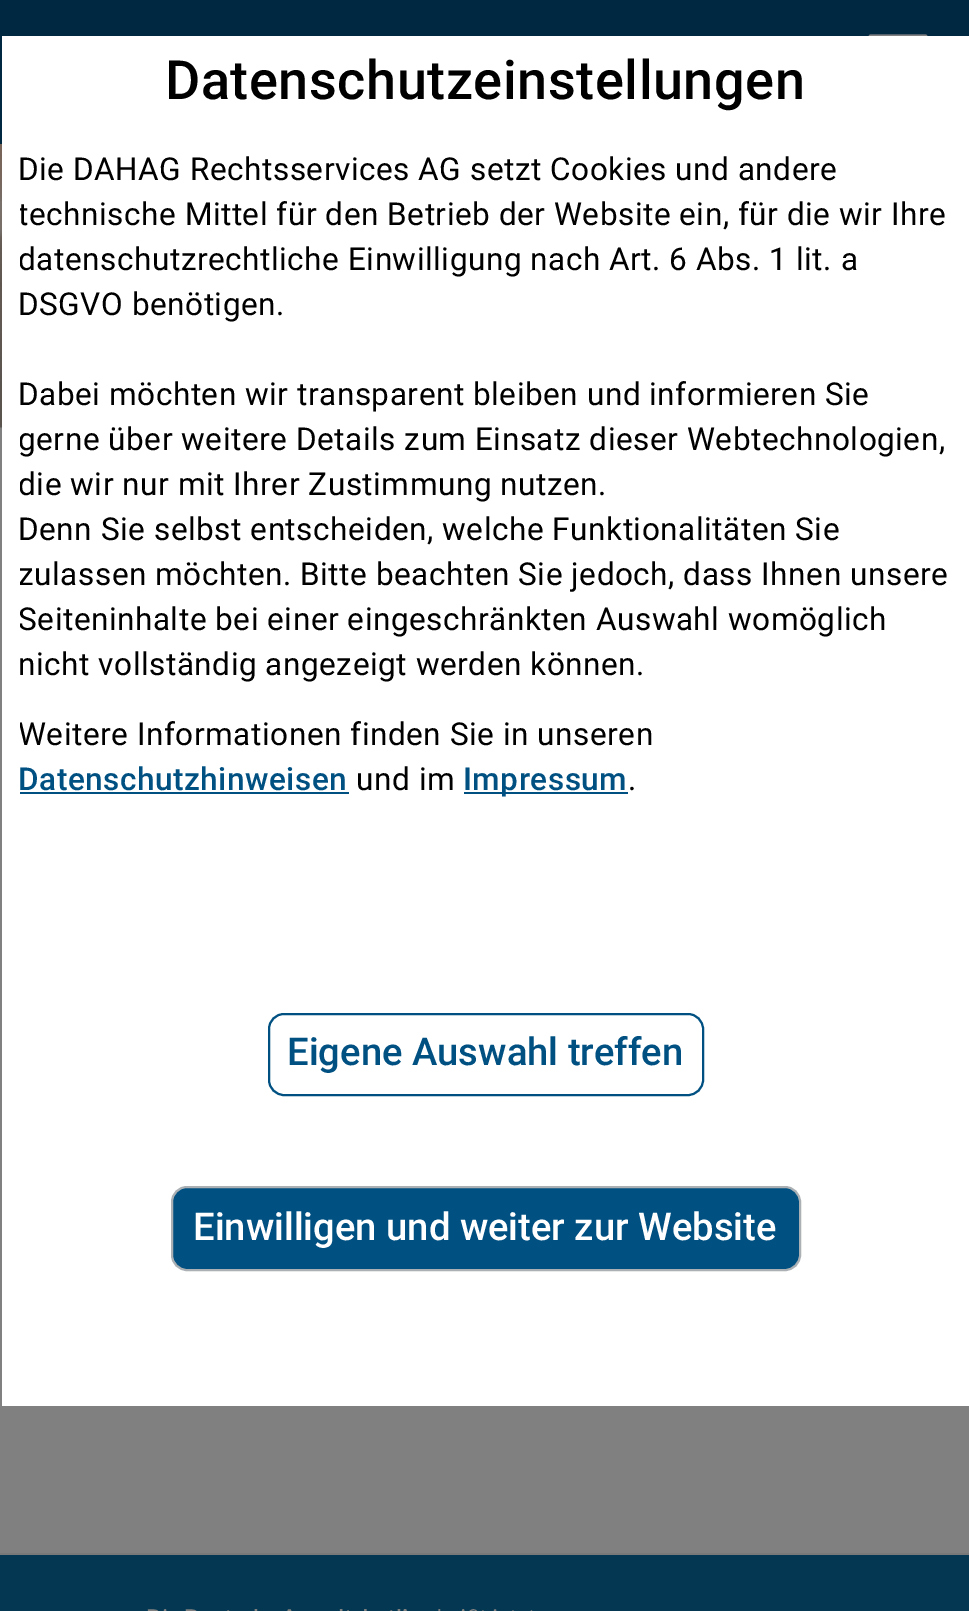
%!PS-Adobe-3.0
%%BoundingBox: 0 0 969 1611
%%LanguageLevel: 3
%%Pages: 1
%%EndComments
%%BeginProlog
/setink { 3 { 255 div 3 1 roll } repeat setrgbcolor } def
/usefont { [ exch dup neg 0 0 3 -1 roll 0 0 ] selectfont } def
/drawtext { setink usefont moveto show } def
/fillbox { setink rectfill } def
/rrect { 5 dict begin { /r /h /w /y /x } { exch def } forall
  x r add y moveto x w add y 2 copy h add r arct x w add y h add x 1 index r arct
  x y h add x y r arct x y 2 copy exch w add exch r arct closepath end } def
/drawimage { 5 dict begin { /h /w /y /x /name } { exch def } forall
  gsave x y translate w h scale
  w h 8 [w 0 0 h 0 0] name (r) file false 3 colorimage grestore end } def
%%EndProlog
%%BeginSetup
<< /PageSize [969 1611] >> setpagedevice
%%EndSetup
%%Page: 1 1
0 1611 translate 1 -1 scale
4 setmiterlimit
0 0 969 1611 128 128 128 fillbox
0 0 969 144 0 40 65 fillbox
(assets/img1.rgb) 868 34 60 2 drawimage
(assets/img2.rgb) 0 144 2 284 drawimage
0 1553 969 2 121 121 121 fillbox
2 36 967 1370 255 255 255 fillbox
/Roboto-Medium 54 usefont
0 0 0 setink
165 99 moveto 0.55 0 (Datenschutzeinstellungen) ashow
/Roboto-Regular 31.5 usefont
18 180 moveto 0.55 0 (Die DAHAG Rechtsservices AG setzt Cookies und andere) ashow
gsave
20 54 934 952 rectclip
18 225 moveto 0.55 0 (technische Mittel für den Betrieb der Website ein, für die wir Ihre) ashow
18 270 moveto 0.55 0 (datenschutzrechtliche Einwilligung nach Art. 6 Abs. 1 lit. a) ashow
grestore
18 315 moveto 0.55 0 (DSGVO benötigen.) ashow
18 405 moveto 0.55 0 (Dabei möchten wir transparent bleiben und informieren Sie) ashow
gsave
20 54 934 952 rectclip
18 450 moveto 0.55 0 (gerne über weitere Details zum Einsatz dieser Webtechnologien,) ashow
18 495 moveto 0.55 0 (die wir nur mit Ihrer Zustimmung nutzen.) ashow
grestore
18 540 moveto 0.55 0 (Denn Sie selbst entscheiden, welche Funktionalitäten Sie) ashow
gsave
20 54 934 952 rectclip
18 585 moveto 0.55 0 (zulassen möchten. Bitte beachten Sie jedoch, dass Ihnen unsere) ashow
18 630 moveto 0.55 0 (Seiteninhalte bei einer eingeschränkten Auswahl womöglich) ashow
grestore
18 675 moveto 0.55 0 (nicht vollständig angezeigt werden können.) ashow
gsave
20 54 934 952 rectclip
18 745 moveto 0.55 0 (Weitere Informationen finden Sie in unseren) ashow
grestore
/Roboto-Medium 31.5 usefont
0 80 130 setink
18 790 moveto 0.55 0 (Datenschutzhinweisen) ashow
20 792 329 2 0 80 130 fillbox
/Roboto-Regular 31.5 usefont
0 0 0 setink
356 790 moveto 0.55 0 (und im) ashow
464 792 164 2 0 80 130 fillbox
/Roboto-Medium 31.5 usefont
463 790 moveto 0.55 0 (Impressum) ashow
/Roboto-Regular 31.5 usefont
0 0 0 setink
628 790 moveto 0.55 0 (.) ashow
0 80 130 setink
2 setlinewidth
269 1014 434 81 15 rrect stroke
(Eigene Auswahl treffen) 287 1065 /Roboto-Medium 38.25 0 80 130 drawtext
172 1187 628 83 15 rrect gsave fill grestore
170 176 179 setink
stroke
(Einwilligen und weiter zur Website) 193 1240 /Roboto-Medium 38.25 255 255 255 drawtext
0 1555 969 56 4 56 82 fillbox
(assets/img3.rgb) 147 1609 386 2 drawimage
showpage
%%EOF
